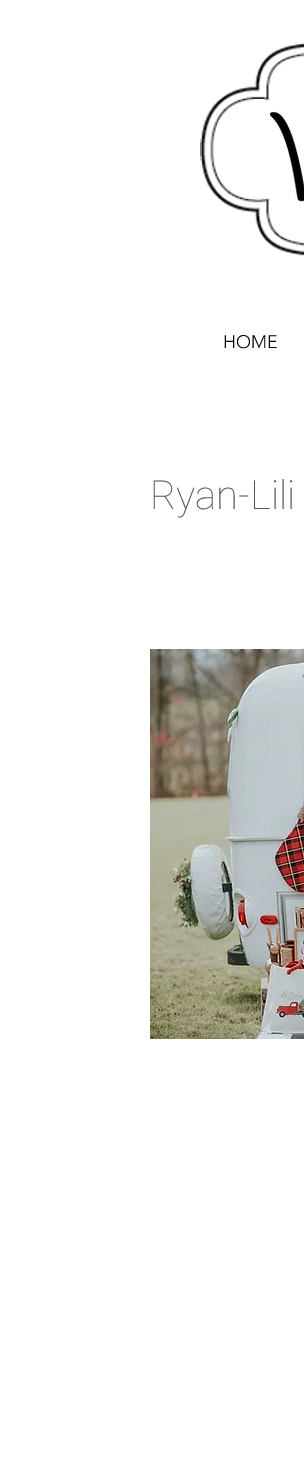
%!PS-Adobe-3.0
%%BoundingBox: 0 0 304 1476
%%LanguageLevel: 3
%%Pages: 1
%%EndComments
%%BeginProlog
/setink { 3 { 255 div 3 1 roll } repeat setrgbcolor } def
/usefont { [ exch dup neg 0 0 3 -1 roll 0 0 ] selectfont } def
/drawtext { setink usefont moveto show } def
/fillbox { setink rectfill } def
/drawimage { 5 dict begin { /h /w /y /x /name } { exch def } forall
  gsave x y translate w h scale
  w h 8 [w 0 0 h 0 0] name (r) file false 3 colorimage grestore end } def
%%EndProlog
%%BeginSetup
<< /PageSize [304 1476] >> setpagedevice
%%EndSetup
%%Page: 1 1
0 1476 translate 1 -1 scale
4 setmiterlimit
0 0 304 1476 255 255 255 fillbox
(assets/img1.rgb) 200 43 104 213 drawimage
(assets/img2.rgb) 270 110 34 92 drawimage
(HOME) 223 348 /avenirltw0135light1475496-Light 18 0 0 0 drawtext
(Ryan-Lili) 150 509 /Roboto-Thin 40 85 85 85 drawtext
(assets/img3.rgb) 150 649 154 390 drawimage
showpage
%%EOF
